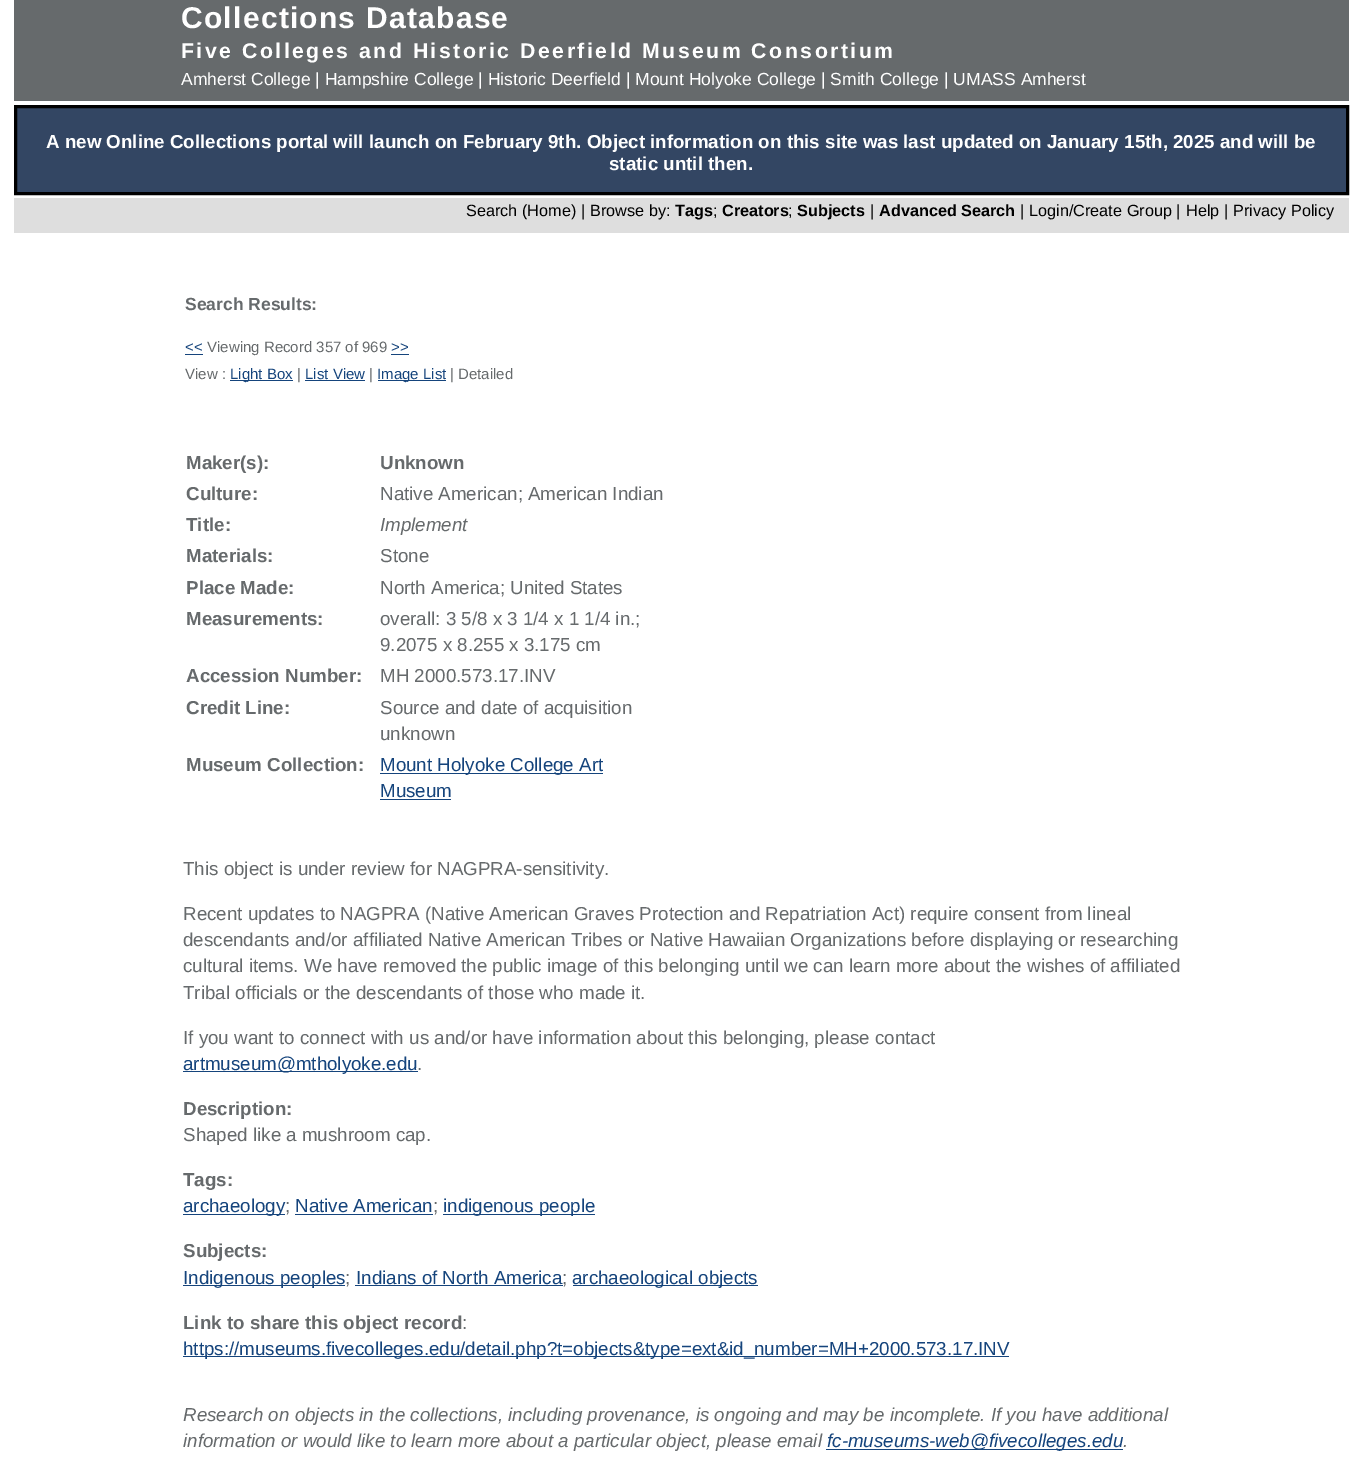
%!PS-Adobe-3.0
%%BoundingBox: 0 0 1362 1464
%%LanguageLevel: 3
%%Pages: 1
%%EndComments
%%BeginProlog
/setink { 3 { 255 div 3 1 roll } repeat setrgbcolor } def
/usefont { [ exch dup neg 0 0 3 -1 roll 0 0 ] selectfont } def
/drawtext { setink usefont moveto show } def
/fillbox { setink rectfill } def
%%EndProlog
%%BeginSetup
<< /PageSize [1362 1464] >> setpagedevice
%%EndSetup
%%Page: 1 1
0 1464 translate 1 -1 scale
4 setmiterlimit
0 0 1362 1464 255 255 255 fillbox
14 0 1335 101 102 106 108 fillbox
/LiberationSans-Bold 30 usefont
255 255 255 setink
181 28 moveto 1.25 0 (Collections Database) ashow
/LiberationSans-Bold 21.25 usefont
181 58 moveto 2.5 0 (Five Colleges and Historic Deerfield Museum Consortium) ashow
(Amherst College | Hampshire College | Historic Deerfield | Mount Holyoke College | Smith College | UMASS Amherst) 181 85 /LiberationSans-Regular 17.5 255 255 255 drawtext
51 70 99 setink
15.5 106.5 moveto 1347.5 106.5 lineto 1347.5 193.5 lineto 15.5 193.5 lineto closepath gsave fill grestore
0 0 0 setink
3 setlinewidth
stroke
(A new Online Collections portal will launch on February 9th. Object information on this site was last updated on January 15th, 2025 and will be) 46 148 /LiberationSans-Bold 18.75 255 255 255 drawtext
(static until then.) 609 170 /LiberationSans-Bold 18.75 255 255 255 drawtext
14 198 1335 35 222 222 222 fillbox
(Search \(Home\) |) 466 216 /LiberationSans-Regular 16.25 0 0 0 drawtext
(Browse by:) 590 216 /LiberationSans-Regular 16.25 0 0 0 drawtext
(Tags) 675 216 /LiberationSans-Bold 16.25 0 0 0 drawtext
(;) 713 216 /LiberationSans-Regular 16.25 0 0 0 drawtext
(Creators) 722 216 /LiberationSans-Bold 16.25 0 0 0 drawtext
(;) 788 216 /LiberationSans-Regular 16.25 0 0 0 drawtext
(Subjects) 797 216 /LiberationSans-Bold 16.25 0 0 0 drawtext
(|) 870 216 /LiberationSans-Regular 16.25 0 0 0 drawtext
(Advanced Search) 879 216 /LiberationSans-Bold 16.25 0 0 0 drawtext
(|) 1020 216 /LiberationSans-Regular 16.25 0 0 0 drawtext
(Login/Create Group |) 1029 216 /LiberationSans-Regular 16.25 0 0 0 drawtext
(Help |) 1186 216 /LiberationSans-Regular 16.25 0 0 0 drawtext
(Privacy Policy) 1233 216 /LiberationSans-Regular 16.25 0 0 0 drawtext
(Search Results:) 185 310 /LiberationSans-Bold 17.5 102 106 108 drawtext
(<<) 185 352 /LiberationSans-Regular 15 21 68 124 drawtext
185 354 18 1 21 68 124 fillbox
(Viewing Record 357 of 969) 207 352 /LiberationSans-Regular 15 102 106 108 drawtext
(>>) 391 352 /LiberationSans-Regular 15 21 68 124 drawtext
391 354 18 1 21 68 124 fillbox
(View :) 185 379 /LiberationSans-Regular 15 102 106 108 drawtext
230 380 63 1 21 68 124 fillbox
(Light Box) 230 379 /LiberationSans-Regular 15 21 68 124 drawtext
(|) 297 379 /LiberationSans-Regular 15 102 106 108 drawtext
(List View) 305 379 /LiberationSans-Regular 15 21 68 124 drawtext
305 380 60 1 21 68 124 fillbox
(|) 369 379 /LiberationSans-Regular 15 102 106 108 drawtext
378 380 68 1 21 68 124 fillbox
(Image List) 377 379 /LiberationSans-Regular 15 21 68 124 drawtext
(| Detailed) 450 379 /LiberationSans-Regular 15 102 106 108 drawtext
(Maker\(s\):) 186 469 /LiberationSans-Bold 18.75 102 106 108 drawtext
(Unknown) 380 469 /LiberationSans-Bold 18.75 102 106 108 drawtext
(Culture:) 186 500 /LiberationSans-Bold 18.75 102 106 108 drawtext
(Native American; American Indian) 380 500 /LiberationSans-Regular 18.75 102 106 108 drawtext
(Title:) 186 531 /LiberationSans-Bold 18.75 102 106 108 drawtext
(Implement) 380 531 /LiberationSans-Italic 18.75 102 106 108 drawtext
(Materials:) 186 562 /LiberationSans-Bold 18.75 102 106 108 drawtext
(Stone) 380 562 /LiberationSans-Regular 18.75 102 106 108 drawtext
(Place Made:) 186 594 /LiberationSans-Bold 18.75 102 106 108 drawtext
(North America; United States) 380 594 /LiberationSans-Regular 18.75 102 106 108 drawtext
(Measurements:) 186 625 /LiberationSans-Bold 18.75 102 106 108 drawtext
(overall: 3 5/8 x 3 1/4 x 1 1/4 in.;) 380 625 /LiberationSans-Regular 18.75 102 106 108 drawtext
(9.2075 x 8.255 x 3.175 cm) 380 651 /LiberationSans-Regular 18.75 102 106 108 drawtext
(Accession Number:) 186 682 /LiberationSans-Bold 18.75 102 106 108 drawtext
(MH 2000.573.17.INV) 380 682 /LiberationSans-Regular 18.75 102 106 108 drawtext
(Credit Line:) 186 714 /LiberationSans-Bold 18.75 102 106 108 drawtext
(Source and date of acquisition) 380 714 /LiberationSans-Regular 18.75 102 106 108 drawtext
(unknown) 380 740 /LiberationSans-Regular 18.75 102 106 108 drawtext
(Museum Collection:) 186 771 /LiberationSans-Bold 18.75 102 106 108 drawtext
380 773 223 1 21 68 124 fillbox
(Mount Holyoke College Art) 380 771 /LiberationSans-Regular 18.75 21 68 124 drawtext
(Museum) 380 797 /LiberationSans-Regular 18.75 21 68 124 drawtext
380 799 71 1 21 68 124 fillbox
(This object is under review for NAGPRA-sensitivity.) 183 875 /LiberationSans-Regular 18.75 102 106 108 drawtext
(Recent updates to NAGPRA \(Native American Graves Protection and Repatriation Act\) require consent from lineal) 183 920 /LiberationSans-Regular 18.75 102 106 108 drawtext
(descendants and/or affiliated Native American Tribes or Native Hawaiian Organizations before displaying or researching) 183 946 /LiberationSans-Regular 18.75 102 106 108 drawtext
(cultural items. We have removed the public image of this belonging until we can learn more about the wishes of affiliated) 183 972 /LiberationSans-Regular 18.75 102 106 108 drawtext
(Tribal officials or the descendants of those who made it.) 183 999 /LiberationSans-Regular 18.75 102 106 108 drawtext
(If you want to connect with us and/or have information about this belonging, please contact) 183 1044 /LiberationSans-Regular 18.75 102 106 108 drawtext
183 1071 235 1 21 68 124 fillbox
(artmuseum@mtholyoke.edu) 183 1070 /LiberationSans-Regular 18.75 21 68 124 drawtext
(.) 417 1070 /LiberationSans-Regular 18.75 102 106 108 drawtext
(Description:) 183 1115 /LiberationSans-Bold 18.75 102 106 108 drawtext
(Shaped like a mushroom cap.) 183 1141 /LiberationSans-Regular 18.75 102 106 108 drawtext
(Tags:) 183 1186 /LiberationSans-Bold 18.75 102 106 108 drawtext
183 1214 102 1 21 68 124 fillbox
(archaeology) 183 1212 /LiberationSans-Regular 18.75 21 68 124 drawtext
(;) 285 1212 /LiberationSans-Regular 18.75 102 106 108 drawtext
(Native American) 295 1212 /LiberationSans-Regular 18.75 21 68 124 drawtext
295 1214 138 1 21 68 124 fillbox
(;) 433 1212 /LiberationSans-Regular 18.75 102 106 108 drawtext
443 1214 152 1 21 68 124 fillbox
(indigenous people) 443 1212 /LiberationSans-Regular 18.75 21 68 124 drawtext
(Subjects:) 183 1257 /LiberationSans-Bold 18.75 102 106 108 drawtext
183 1285 162 1 21 68 124 fillbox
(Indigenous peoples) 183 1284 /LiberationSans-Regular 18.75 21 68 124 drawtext
(;) 345 1284 /LiberationSans-Regular 18.75 102 106 108 drawtext
(Indians of North America) 356 1284 /LiberationSans-Regular 18.75 21 68 124 drawtext
355 1285 208 1 21 68 124 fillbox
(;) 562 1284 /LiberationSans-Regular 18.75 102 106 108 drawtext
573 1285 185 1 21 68 124 fillbox
(archaeological objects) 572 1284 /LiberationSans-Regular 18.75 21 68 124 drawtext
(Link to share this object record) 183 1329 /LiberationSans-Bold 18.75 102 106 108 drawtext
(:) 462 1329 /LiberationSans-Regular 18.75 102 106 108 drawtext
183 1356 826 1 21 68 124 fillbox
(https://museums.fivecolleges.edu/detail.php?t=objects&type=ext&id_number=MH+2000.573.17.INV) 183 1355 /LiberationSans-Regular 18.75 21 68 124 drawtext
(Research on objects in the collections, including provenance, is ongoing and may be incomplete. If you have additional) 183 1421 /LiberationSans-Italic 18.75 102 106 108 drawtext
(information or would like to learn more about a particular object, please email) 183 1447 /LiberationSans-Italic 18.75 102 106 108 drawtext
826 1449 297 1 21 68 124 fillbox
(fc-museums-web@fivecolleges.edu) 827 1447 /LiberationSans-Italic 18.75 21 68 124 drawtext
(.) 1123 1447 /LiberationSans-Italic 18.75 102 106 108 drawtext
showpage
%%EOF
